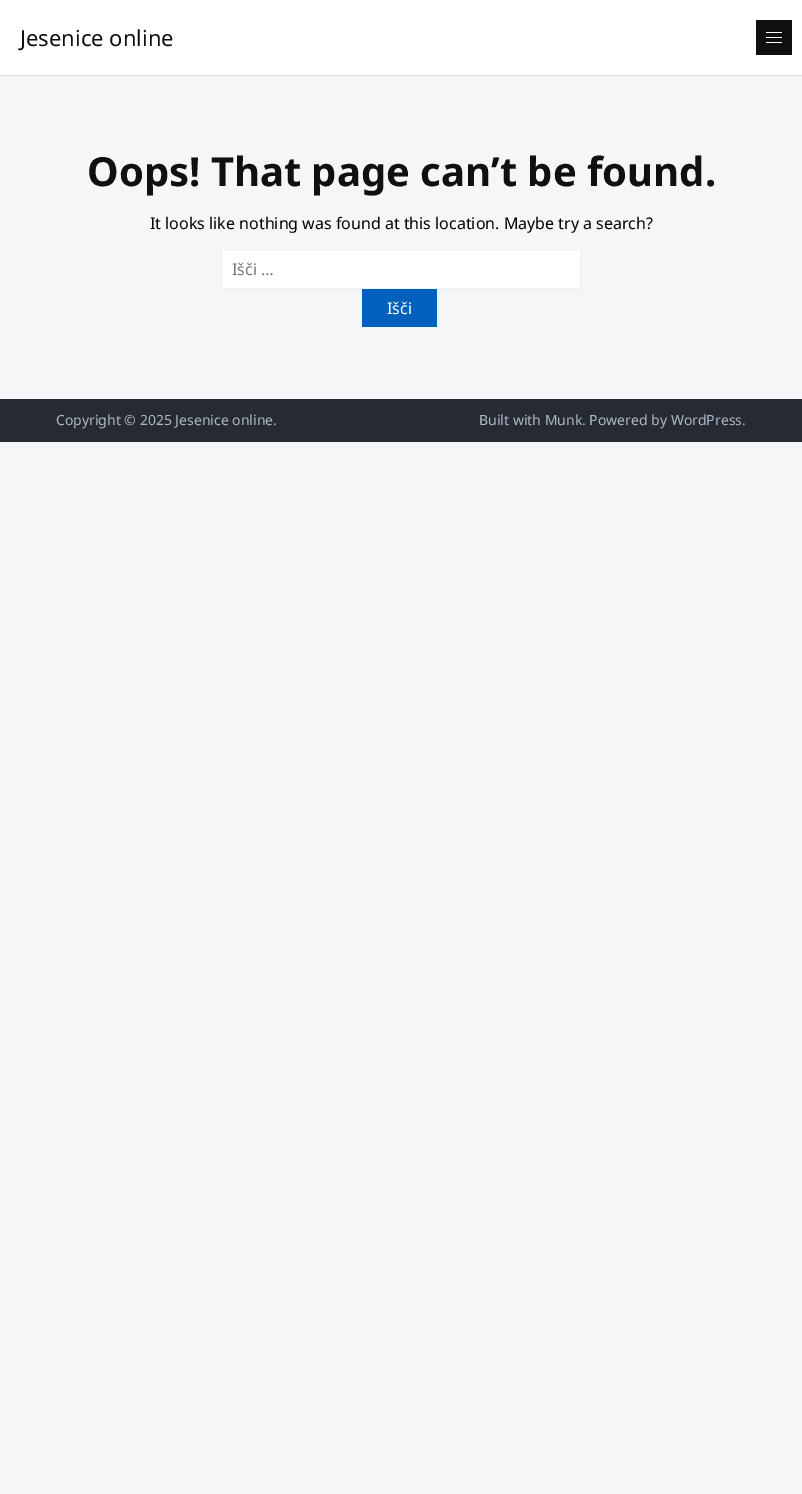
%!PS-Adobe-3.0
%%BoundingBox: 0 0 802 1494
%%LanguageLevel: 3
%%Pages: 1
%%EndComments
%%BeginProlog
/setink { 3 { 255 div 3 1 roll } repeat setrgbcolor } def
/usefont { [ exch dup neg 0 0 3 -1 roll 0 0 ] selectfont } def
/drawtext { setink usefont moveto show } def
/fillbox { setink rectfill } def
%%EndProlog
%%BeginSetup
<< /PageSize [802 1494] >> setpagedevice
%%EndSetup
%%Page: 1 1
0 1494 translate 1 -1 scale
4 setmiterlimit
0 0 802 1494 245 246 247 fillbox
0 0 802 75 255 255 255 fillbox
0 75 802 1 212 218 223 fillbox
(Jesenice online) 20 46 /NotoSans-Regular 22 16 16 16 drawtext
756 20 36 35 16 16 16 fillbox
766 32 16 1 255 255 255 fillbox
766 37 16 1 255 255 255 fillbox
766 42 16 1 255 255 255 fillbox
(Oops! That page can’t be found.) 87 186 /NotoSans-Bold 40 16 16 16 drawtext
(It looks like nothing was found at this location. Maybe try a search?) 150 229 /NotoSans-Regular 16 0 0 0 drawtext
255 255 255 setink
221.5 249.5 moveto 580.5 249.5 lineto 580.5 288.5 lineto 221.5 288.5 lineto closepath gsave fill grestore
241 241 241 setink
stroke
(Išči …) 232 275 /NotoSans-Regular 16 117 117 117 drawtext
362 289 75 38 1 97 189 fillbox
(Išči) 387 314 /NotoSans-Regular 16 255 255 255 drawtext
0 399 802 43 38 43 51 fillbox
(Copyright © 2025 Jesenice online.) 56 425 /NotoSans-Regular 14 175 183 197 drawtext
(Built with Munk. Powered by WordPress.) 479 425 /NotoSans-Regular 14 175 183 197 drawtext
showpage
%%EOF
